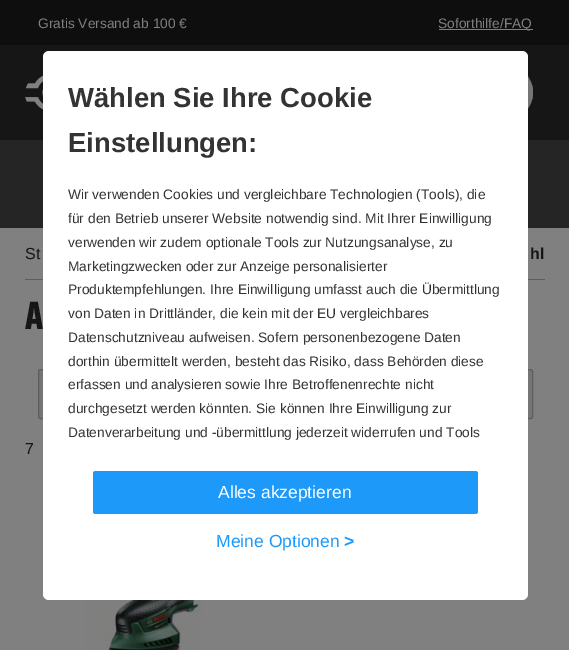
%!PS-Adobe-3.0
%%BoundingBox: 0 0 569 650
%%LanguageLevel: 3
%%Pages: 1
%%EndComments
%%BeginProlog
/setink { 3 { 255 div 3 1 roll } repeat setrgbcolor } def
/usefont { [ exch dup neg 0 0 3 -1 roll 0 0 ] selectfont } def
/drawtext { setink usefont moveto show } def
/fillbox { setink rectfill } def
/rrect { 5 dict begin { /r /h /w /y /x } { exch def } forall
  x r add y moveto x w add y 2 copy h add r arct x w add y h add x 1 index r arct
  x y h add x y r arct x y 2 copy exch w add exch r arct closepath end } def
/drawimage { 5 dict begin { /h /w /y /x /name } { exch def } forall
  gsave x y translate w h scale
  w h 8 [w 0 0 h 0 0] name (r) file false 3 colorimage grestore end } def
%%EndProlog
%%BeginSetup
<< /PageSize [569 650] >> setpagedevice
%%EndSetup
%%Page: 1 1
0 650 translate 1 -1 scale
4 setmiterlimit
0 0 569 650 128 128 128 fillbox
0 0 569 45 14 14 14 fillbox
(Gratis Versand ab 100 €) 38 28 /LiberationSans-Regular 13.75 128 128 128 drawtext
439 29 94 1 128 128 128 fillbox
(Soforthilfe/FAQ) 438 28 /LiberationSans-Regular 13.75 128 128 128 drawtext
0 45 569 95 22 22 22 fillbox
(assets/img1.rgb) 25 75 18 35 drawimage
117 117 117 setink
466 64 moveto 504.5 64 lineto 520 64 533 77 533 92.5 curveto 533 108 520 121 504.5 121 curveto 466 121 lineto closepath fill
466 64 moveto 466 121 lineto 504 121 lineto 512 120 lineto 467 120 lineto 467 65 lineto 512 65 lineto 504 64 lineto closepath 532 85 moveto 532 100 lineto 533 95 533 90 532 85 curveto closepath eofill
0 140 569 88 37 37 37 fillbox
25 279 520 1 93 93 93 fillbox
(St) 25 259 /LiberationSans-Regular 16 22 22 22 drawtext
(hl) 530 259 /LiberationSans-Bold 16 22 22 22 drawtext
(A) 25 329 /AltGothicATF-Bold 38 22 22 22 drawtext
117 117 117 setink
38.5 369.5 494 49 2 rrect gsave fill grestore
93 93 93 setink
stroke
(7) 25 454 /LiberationSans-Regular 16 22 22 22 drawtext
(assets/img2.rgb) 85 600 118 50 drawimage
255 255 255 setink
43 51 485 549 6 rrect fill
(Wählen Sie Ihre Cookie) 68 107 /LiberationSans-Bold 27.5 51 51 51 drawtext
(Einstellungen:) 68 152 /LiberationSans-Bold 27.5 51 51 51 drawtext
(Wir verwenden Cookies und vergleichbare Technologien \(Tools\), die) 68 199 /LiberationSans-Regular 13.75 51 51 51 drawtext
(für den Betrieb unserer Website notwendig sind. Mit Ihrer Einwilligung) 68 223 /LiberationSans-Regular 13.75 51 51 51 drawtext
(verwenden wir zudem optionale Tools zur Nutzungsanalyse, zu) 68 247 /LiberationSans-Regular 13.75 51 51 51 drawtext
(Marketingzwecken oder zur Anzeige personalisierter) 68 271 /LiberationSans-Regular 13.75 51 51 51 drawtext
(Produktempfehlungen. Ihre Einwilligung umfasst auch die Übermittlung) 68 294 /LiberationSans-Regular 13.75 51 51 51 drawtext
(von Daten in Drittländer, die kein mit der EU vergleichbares) 68 318 /LiberationSans-Regular 13.75 51 51 51 drawtext
(Datenschutzniveau aufweisen. Sofern personenbezogene Daten) 68 342 /LiberationSans-Regular 13.75 51 51 51 drawtext
(dorthin übermittelt werden, besteht das Risiko, dass Behörden diese) 68 366 /LiberationSans-Regular 13.75 51 51 51 drawtext
(erfassen und analysieren sowie Ihre Betroffenenrechte nicht) 68 389 /LiberationSans-Regular 13.75 51 51 51 drawtext
(durchgesetzt werden könnten. Sie können Ihre Einwilligung zur) 68 413 /LiberationSans-Regular 13.75 51 51 51 drawtext
(Datenverarbeitung und -übermittlung jederzeit widerrufen und Tools) 68 437 /LiberationSans-Regular 13.75 51 51 51 drawtext
29 153 250 setink
93 471 385 43 2.5 rrect fill
(Alles akzeptieren) 218 498 /LiberationSans-Regular 17.5 255 255 255 drawtext
(Meine Optionen) 216 547 /LiberationSans-Regular 17.5 29 153 250 drawtext
(>) 344 547 /LiberationSans-Bold 17.5 29 153 250 drawtext
showpage
%%EOF
